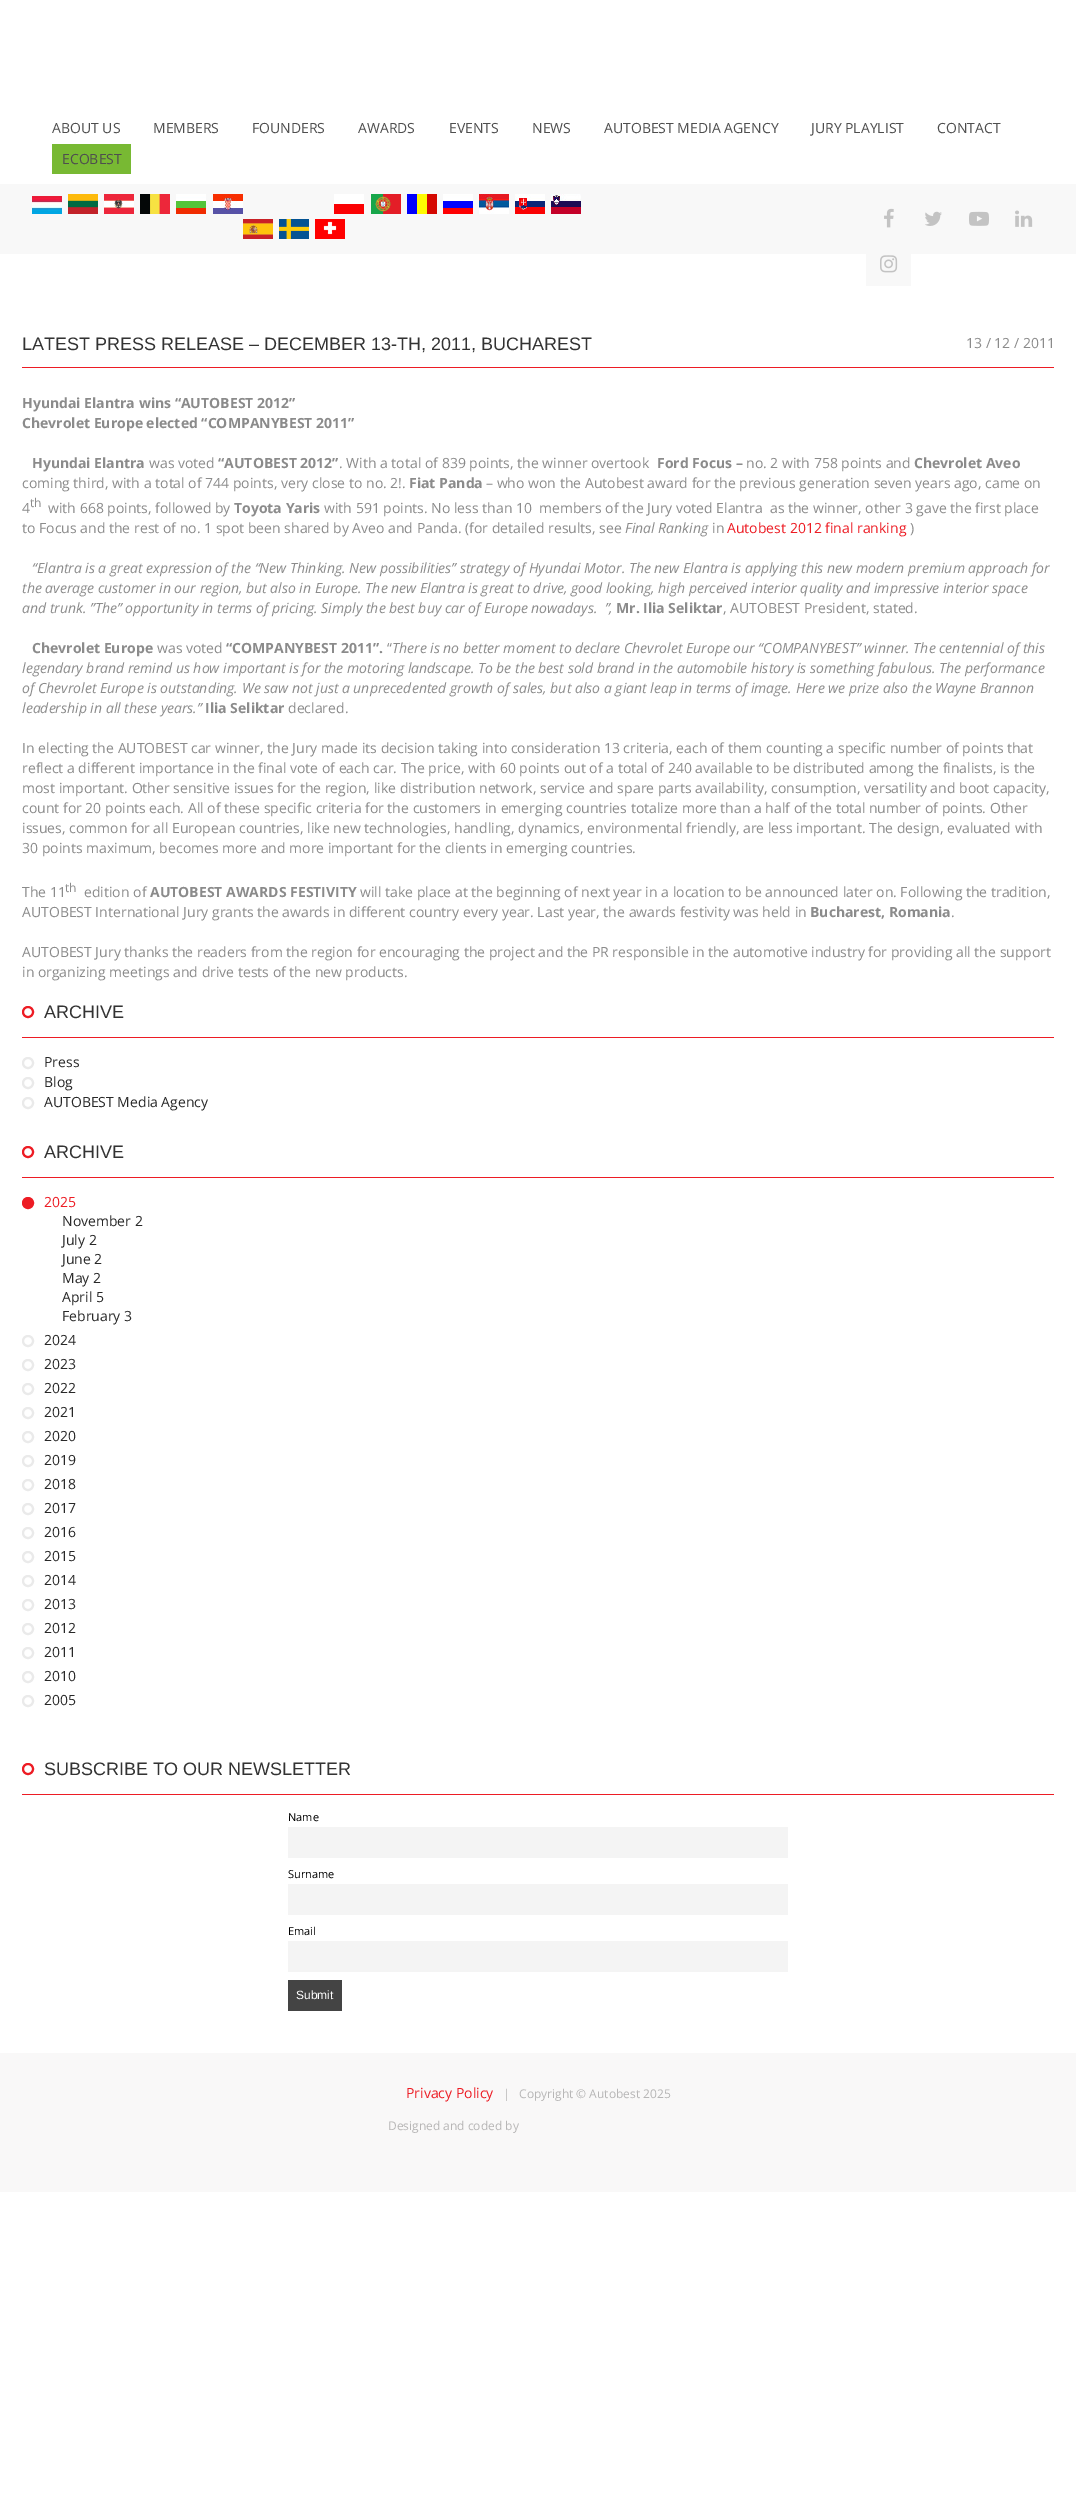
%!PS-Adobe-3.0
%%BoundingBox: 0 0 1076 2503
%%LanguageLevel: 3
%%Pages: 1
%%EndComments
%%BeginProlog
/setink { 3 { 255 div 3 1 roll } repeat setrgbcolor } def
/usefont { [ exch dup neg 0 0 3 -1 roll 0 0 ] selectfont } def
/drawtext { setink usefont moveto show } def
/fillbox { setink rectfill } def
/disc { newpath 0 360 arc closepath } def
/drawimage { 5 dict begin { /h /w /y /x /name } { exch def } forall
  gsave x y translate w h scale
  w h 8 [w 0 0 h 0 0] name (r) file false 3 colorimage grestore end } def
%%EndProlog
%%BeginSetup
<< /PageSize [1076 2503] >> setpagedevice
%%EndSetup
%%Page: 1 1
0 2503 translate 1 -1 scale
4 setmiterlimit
0 0 1076 2503 255 255 255 fillbox
(ABOUT US) 52 133 /OpenSans-Regular 14 78 78 78 drawtext
(MEMBERS) 153 133 /OpenSans-Regular 14 78 78 78 drawtext
(FOUNDERS) 252 133 /OpenSans-Regular 14 78 78 78 drawtext
(AWARDS) 358 133 /OpenSans-Regular 14 78 78 78 drawtext
(EVENTS) 449 133 /OpenSans-Regular 14 78 78 78 drawtext
(NEWS) 532 133 /OpenSans-Regular 14 78 78 78 drawtext
(AUTOBEST MEDIA AGENCY) 604 133 /OpenSans-Regular 14 78 78 78 drawtext
(JURY PLAYLIST) 811 133 /OpenSans-Regular 14 78 78 78 drawtext
(CONTACT) 937 133 /OpenSans-Regular 14 78 78 78 drawtext
52 144 79 30 120 185 51 fillbox
(ECOBEST) 62 164 /OpenSans-Regular 14 78 78 78 drawtext
0 184 1076 70 248 248 248 fillbox
(assets/img1.rgb) 32 196 30 18 drawimage
(assets/img2.rgb) 68 194 30 20 drawimage
(assets/img3.rgb) 104 194 30 20 drawimage
(assets/img4.rgb) 140 194 30 20 drawimage
(assets/img5.rgb) 176 194 30 20 drawimage
(assets/img6.rgb) 213 194 30 20 drawimage
(assets/img7.rgb) 334 194 30 20 drawimage
(assets/img8.rgb) 371 194 30 20 drawimage
(assets/img9.rgb) 407 194 30 20 drawimage
(assets/img10.rgb) 443 194 30 20 drawimage
(assets/img11.rgb) 479 194 30 20 drawimage
(assets/img12.rgb) 515 194 30 20 drawimage
(assets/img13.rgb) 551 194 30 20 drawimage
(assets/img14.rgb) 243 219 30 20 drawimage
(assets/img15.rgb) 279 219 30 20 drawimage
(assets/img16.rgb) 315 219 30 20 drawimage
(assets/img17.rgb) 884 208 10 20 drawimage
(assets/img18.rgb) 925 211 17 15 drawimage
(assets/img19.rgb) 969 211 20 15 drawimage
(assets/img20.rgb) 1015 210 18 17 drawimage
866 254 45 32 248 248 248 fillbox
(assets/img21.rgb) 880 255 18 18 drawimage
22 367 1032 1 237 28 36 fillbox
(LATEST PRESS RELEASE – DECEMBER 13-TH, 2011, BUCHAREST) 22 350 /LiberationSans-Regular 18 51 51 51 drawtext
(13 / 12 / 2011) 966 348 /OpenSans-Regular 14 139 139 139 drawtext
(Hyundai Elantra wins “AUTOBEST 2012”) 22 408 /OpenSans-Bold 14 139 139 139 drawtext
(Chevrolet Europe elected “COMPANYBEST 2011”) 22 428 /OpenSans-Bold 14 139 139 139 drawtext
(Hyundai Elantra) 32 468 /OpenSans-Bold 14 139 139 139 drawtext
(was voted) 149 468 /OpenSans-Regular 14 139 139 139 drawtext
(“AUTOBEST 2012”) 218 468 /OpenSans-Bold 14 139 139 139 drawtext
(. With a total of 839 points, the winner overtook) 339 468 /OpenSans-Regular 14 139 139 139 drawtext
(Ford Focus –) 657 468 /OpenSans-Bold 14 139 139 139 drawtext
(no. 2 with 758 points and) 746 468 /OpenSans-Regular 14 139 139 139 drawtext
(Chevrolet Aveo) 914 468 /OpenSans-Bold 14 139 139 139 drawtext
(coming third, with a total of 744 points, very close to no. 2!.) 22 488 /OpenSans-Regular 14 139 139 139 drawtext
(Fiat Panda) 409 488 /OpenSans-Bold 14 139 139 139 drawtext
(– who won the Autobest award for the previous generation seven years ago, came on) 486 488 /OpenSans-Regular 14 139 139 139 drawtext
(4) 22 513 /OpenSans-Regular 14 139 139 139 drawtext
(th) 30 507 /OpenSans-Regular 12 139 139 139 drawtext
(with 668 points, followed by) 48 513 /OpenSans-Regular 14 139 139 139 drawtext
(Toyota Yaris) 234 513 /OpenSans-Bold 14 139 139 139 drawtext
(with 591 points. No less than 10  members of the Jury voted Elantra  as the winner, other 3 gave the first place) 324 513 /OpenSans-Regular 14 139 139 139 drawtext
(to Focus and the rest of no. 1 spot been shared by Aveo and Panda. \(for detailed results, see) 22 533 /OpenSans-Regular 14 139 139 139 drawtext
(Final Ranking) 625 533 /OpenSans-Italic 14 139 139 139 drawtext
(in) 712 533 /OpenSans-Regular 14 139 139 139 drawtext
(Autobest 2012 final ranking) 727 533 /OpenSans-Regular 14 237 28 36 drawtext
(\)) 910 533 /OpenSans-Regular 14 139 139 139 drawtext
(“Elantra is a great expression of the “New Thinking. New possibilities” strategy of Hyundai Motor. The new Elantra is applying this new modern premium approach for) 32 573 /OpenSans-Italic 14 139 139 139 drawtext
(the average customer in our region, but also in Europe. The new Elantra is great to drive, good looking, high perceived interior quality and impressive interior space) 22 593 /OpenSans-Italic 14 139 139 139 drawtext
(and trunk. ”The” opportunity in terms of pricing. Simply the best buy car of Europe nowadays.  ”,) 22 613 /OpenSans-Italic 14 139 139 139 drawtext
(Mr. Ilia Seliktar) 616 613 /OpenSans-Bold 14 139 139 139 drawtext
(, AUTOBEST President, stated.) 723 613 /OpenSans-Regular 14 139 139 139 drawtext
(Chevrolet Europe) 32 653 /OpenSans-Bold 14 139 139 139 drawtext
(was voted) 157 653 /OpenSans-Regular 14 139 139 139 drawtext
(“COMPANYBEST 2011”.) 226 653 /OpenSans-Bold 14 139 139 139 drawtext
(“) 387 653 /OpenSans-Regular 14 139 139 139 drawtext
(There is no better moment to declare Chevrolet Europe our “COMPANYBEST” winner. The centennial of this) 392 653 /OpenSans-Italic 14 139 139 139 drawtext
(legendary brand remind us how important is for the motoring landscape. To be the best sold brand in the automobile history is something fabulous. The performance) 22 673 /OpenSans-Italic 14 139 139 139 drawtext
(of Chevrolet Europe is outstanding. We saw not just a unprecedented growth of sales, but also a giant leap in terms of image. Here we prize also the Wayne Brannon) 22 693 /OpenSans-Italic 14 139 139 139 drawtext
(leadership in all these years.”) 22 713 /OpenSans-Italic 14 139 139 139 drawtext
(Ilia Seliktar) 205 713 /OpenSans-Bold 14 139 139 139 drawtext
(declared.) 288 713 /OpenSans-Regular 14 139 139 139 drawtext
(In electing the AUTOBEST car winner, the Jury made its decision taking into consideration 13 criteria, each of them counting a specific number of points that) 22 753 /OpenSans-Regular 14 139 139 139 drawtext
(reflect a different importance in the final vote of each car. The price, with 60 points out of a total of 240 available to be distributed among the finalists, is the) 22 773 /OpenSans-Regular 14 139 139 139 drawtext
(most important. Other sensitive issues for the region, like distribution network, service and spare parts availability, consumption, versatility and boot capacity,) 22 793 /OpenSans-Regular 14 139 139 139 drawtext
(count for 20 points each. All of these specific criteria for the customers in emerging countries totalize more than a half of the total number of points. Other) 22 813 /OpenSans-Regular 14 139 139 139 drawtext
(issues, common for all European countries, like new technologies, handling, dynamics, environmental friendly, are less important. The design, evaluated with) 22 833 /OpenSans-Regular 14 139 139 139 drawtext
(30 points maximum, becomes more and more important for the clients in emerging countries.) 22 853 /OpenSans-Regular 14 139 139 139 drawtext
(The 11) 22 897 /OpenSans-Regular 14 139 139 139 drawtext
(th) 65 892 /OpenSans-Regular 12 139 139 139 drawtext
(edition of) 84 897 /OpenSans-Regular 14 139 139 139 drawtext
(AUTOBEST AWARDS FESTIVITY) 150 897 /OpenSans-Bold 14 139 139 139 drawtext
(will take place at the beginning of next year in a location to be announced later on. Following the tradition,) 360 897 /OpenSans-Regular 14 139 139 139 drawtext
(AUTOBEST International Jury grants the awards in different country every year. Last year, the awards festivity was held in) 22 917 /OpenSans-Regular 14 139 139 139 drawtext
(Bucharest, Romania) 810 917 /OpenSans-Bold 14 139 139 139 drawtext
(.) 951 917 /OpenSans-Regular 14 139 139 139 drawtext
(AUTOBEST Jury thanks the readers from the region for encouraging the project and the PR responsible in the automotive industry for providing all the support) 22 957 /OpenSans-Regular 14 139 139 139 drawtext
(in organizing meetings and drive tests of the new products.) 22 977 /OpenSans-Regular 14 139 139 139 drawtext
22 1037 1032 1 237 28 36 fillbox
2 setlinewidth
28 1012 5 disc stroke
(ARCHIVE) 44 1018 /LiberationSans-Regular 18 51 51 51 drawtext
234 234 234 setink
28 1063 5 disc stroke
(Press) 44 1067 /OpenSans-Regular 14 40 40 40 drawtext
234 234 234 setink
28 1083 5 disc stroke
(Blog) 44 1087 /OpenSans-Regular 14 40 40 40 drawtext
234 234 234 setink
28 1103 5 disc stroke
(AUTOBEST Media Agency) 44 1107 /OpenSans-Regular 14 40 40 40 drawtext
22 1177 1032 1 237 28 36 fillbox
28 1152 5 disc stroke
(ARCHIVE) 44 1158 /LiberationSans-Regular 18 51 51 51 drawtext
237 28 36 setink
28 1203 5 disc gsave fill grestore
stroke
(2025) 44 1207 /OpenSans-Regular 14 237 28 36 drawtext
(November 2) 62 1226 /OpenSans-Regular 14 40 40 40 drawtext
(July 2) 62 1245 /OpenSans-Regular 14 40 40 40 drawtext
(June 2) 62 1264 /OpenSans-Regular 14 40 40 40 drawtext
(May 2) 62 1283 /OpenSans-Regular 14 40 40 40 drawtext
(April 5) 62 1302 /OpenSans-Regular 14 40 40 40 drawtext
(February 3) 62 1321 /OpenSans-Regular 14 40 40 40 drawtext
234 234 234 setink
28 1341 5 disc stroke
(2024) 44 1345 /OpenSans-Regular 14 40 40 40 drawtext
234 234 234 setink
28 1365 5 disc stroke
(2023) 44 1369 /OpenSans-Regular 14 40 40 40 drawtext
234 234 234 setink
28 1389 5 disc stroke
(2022) 44 1393 /OpenSans-Regular 14 40 40 40 drawtext
234 234 234 setink
28 1413 5 disc stroke
(2021) 44 1417 /OpenSans-Regular 14 40 40 40 drawtext
234 234 234 setink
28 1437 5 disc stroke
(2020) 44 1441 /OpenSans-Regular 14 40 40 40 drawtext
234 234 234 setink
28 1461 5 disc stroke
(2019) 44 1465 /OpenSans-Regular 14 40 40 40 drawtext
234 234 234 setink
28 1485 5 disc stroke
(2018) 44 1489 /OpenSans-Regular 14 40 40 40 drawtext
234 234 234 setink
28 1509 5 disc stroke
(2017) 44 1513 /OpenSans-Regular 14 40 40 40 drawtext
234 234 234 setink
28 1533 5 disc stroke
(2016) 44 1537 /OpenSans-Regular 14 40 40 40 drawtext
234 234 234 setink
28 1557 5 disc stroke
(2015) 44 1561 /OpenSans-Regular 14 40 40 40 drawtext
234 234 234 setink
28 1581 5 disc stroke
(2014) 44 1585 /OpenSans-Regular 14 40 40 40 drawtext
234 234 234 setink
28 1605 5 disc stroke
(2013) 44 1609 /OpenSans-Regular 14 40 40 40 drawtext
234 234 234 setink
28 1629 5 disc stroke
(2012) 44 1633 /OpenSans-Regular 14 40 40 40 drawtext
234 234 234 setink
28 1653 5 disc stroke
(2011) 44 1657 /OpenSans-Regular 14 40 40 40 drawtext
234 234 234 setink
28 1677 5 disc stroke
(2010) 44 1681 /OpenSans-Regular 14 40 40 40 drawtext
234 234 234 setink
28 1701 5 disc stroke
(2005) 44 1705 /OpenSans-Regular 14 40 40 40 drawtext
22 1794 1032 1 237 28 36 fillbox
28 1769 5 disc stroke
(SUBSCRIBE TO OUR NEWSLETTER) 44 1775 /LiberationSans-Regular 18 51 51 51 drawtext
(Name) 288 1821 /OpenSans-Regular 11 0 0 0 drawtext
288 1827 500 31 244 244 244 fillbox
(Surname) 288 1878 /OpenSans-Regular 11 0 0 0 drawtext
288 1884 500 31 244 244 244 fillbox
(Email) 288 1935 /OpenSans-Regular 11 0 0 0 drawtext
288 1941 500 31 244 244 244 fillbox
288 1980 54 31 68 68 68 fillbox
(Submit) 296 1999 /LiberationSans-Regular 12 255 255 255 drawtext
0 2053 1076 139 249 248 248 fillbox
(Privacy Policy) 406 2098 /OpenSans-Regular 14 237 28 36 drawtext
(|) 503 2098 /OpenSans-Regular 12 183 182 182 drawtext
(Copyright © Autobest 2025) 519 2098 /OpenSans-Regular 12 183 182 182 drawtext
(Designed and coded by) 388 2130 /OpenSans-Regular 12 183 182 182 drawtext
showpage
%%EOF
